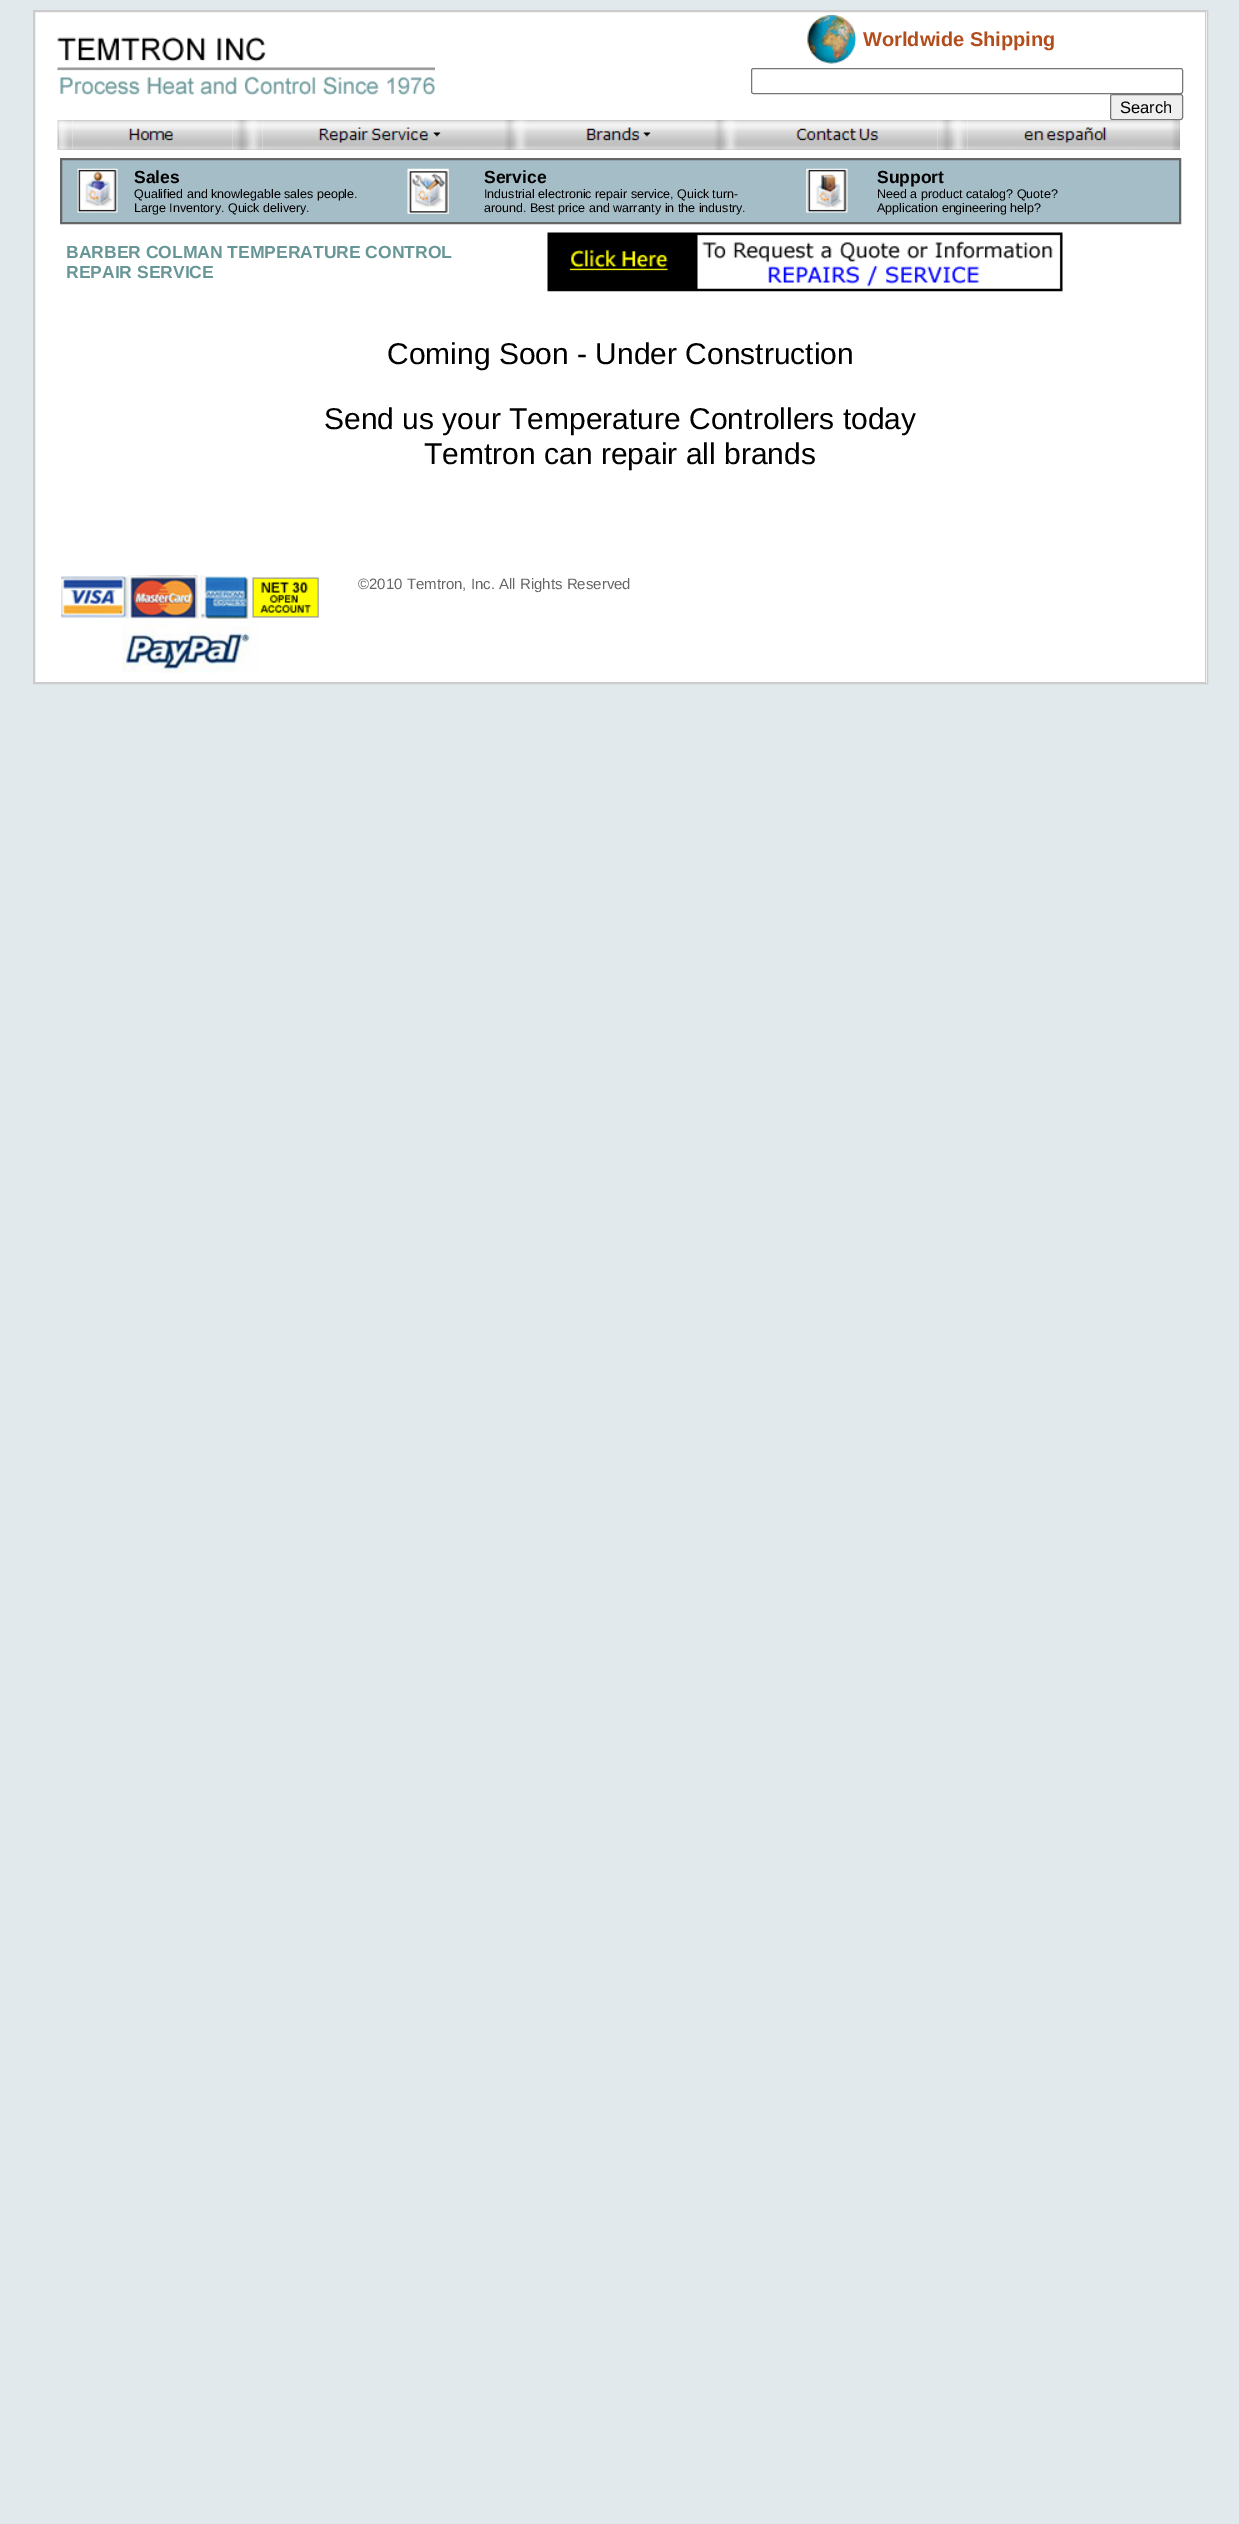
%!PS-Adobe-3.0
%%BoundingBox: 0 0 1239 2524
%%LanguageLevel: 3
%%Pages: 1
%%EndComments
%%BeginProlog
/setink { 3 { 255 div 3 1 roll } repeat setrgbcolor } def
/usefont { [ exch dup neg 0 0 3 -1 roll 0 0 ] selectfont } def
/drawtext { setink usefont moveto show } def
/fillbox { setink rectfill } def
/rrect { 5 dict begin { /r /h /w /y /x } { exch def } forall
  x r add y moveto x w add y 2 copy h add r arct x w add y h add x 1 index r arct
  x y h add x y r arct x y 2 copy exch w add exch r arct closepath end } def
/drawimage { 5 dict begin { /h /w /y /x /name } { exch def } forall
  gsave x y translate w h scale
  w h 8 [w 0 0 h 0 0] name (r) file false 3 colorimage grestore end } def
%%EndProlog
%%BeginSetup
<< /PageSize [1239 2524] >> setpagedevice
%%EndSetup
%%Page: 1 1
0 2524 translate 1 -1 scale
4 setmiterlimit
0 0 1239 2524 225 233 236 fillbox
35 11 1172 672 255 255 255 fillbox
204 204 204 setink
33.5 10.5 1174 673 rectstroke
34.5 11.5 1171 671 rectstroke
(assets/img1.rgb) 57 37 378 58 drawimage
(assets/img2.rgb) 807 15 50 49 drawimage
(Worldwide Shipping) 863 46 /LiberationSans-Bold 20 179 77 28 drawtext
118 118 118 setink
751.5 68.5 431 25 2 rrect stroke
239 239 239 setink
1110.5 94.5 72 25 2 rrect gsave fill grestore
118 118 118 setink
stroke
(Search) 1120 113 /LiberationSans-Regular 16.5 0 0 0 drawtext
(assets/img3.rgb) 57 120 16 30 drawimage
(assets/img4.rgb) 72 120 161 30 drawimage
(assets/img5.rgb) 232 120 31 30 drawimage
(assets/img6.rgb) 262 120 238 30 drawimage
(assets/img7.rgb) 500 120 30 30 drawimage
(assets/img8.rgb) 530 120 180 30 drawimage
(assets/img9.rgb) 710 120 30 30 drawimage
(assets/img10.rgb) 740 120 198 30 drawimage
(assets/img11.rgb) 937 120 31 30 drawimage
(assets/img12.rgb) 967 120 198 30 drawimage
(assets/img13.rgb) 1165 120 15 30 drawimage
62 160 1117 62 165 189 199 fillbox
102 102 102 setink
60.5 158.5 1120 65 rectstroke
61.5 159.5 1118 63 rectstroke
(assets/img14.rgb) 77 168 41 45 drawimage
(Sales) 134 183 /LiberationSans-Bold 17.5 0 0 0 drawtext
(Qualified and knowlegable sales people.) 134 198 /LiberationSans-Regular 12.5 0 0 0 drawtext
(Large Inventory. Quick delivery.) 134 212 /LiberationSans-Regular 12.5 0 0 0 drawtext
(assets/img15.rgb) 407 168 42 46 drawimage
(Service) 484 183 /LiberationSans-Bold 17.5 0 0 0 drawtext
(Industrial electronic repair service, Quick turn-) 484 198 /LiberationSans-Regular 12.5 0 0 0 drawtext
(around. Best price and warranty in the industry.) 484 212 /LiberationSans-Regular 12.5 0 0 0 drawtext
(assets/img16.rgb) 806 168 42 45 drawimage
(Support) 877 183 /LiberationSans-Bold 17.5 0 0 0 drawtext
(Need a product catalog? Quote?) 877 198 /LiberationSans-Regular 12.5 0 0 0 drawtext
(Application engineering help?) 877 212 /LiberationSans-Regular 12.5 0 0 0 drawtext
(BARBER COLMAN TEMPERATURE CONTROL) 66 258 /LiberationSans-Bold 17.5 104 150 150 drawtext
(REPAIR SERVICE) 66 278 /LiberationSans-Bold 17.5 104 150 150 drawtext
(assets/img17.rgb) 547 232 516 60 drawimage
(Coming Soon - Under Construction) 387 364 /LiberationSans-Regular 30 0 0 0 drawtext
(Send us your Temperature Controllers today) 324 429 /LiberationSans-Regular 30 0 0 0 drawtext
(Temtron can repair all brands) 424 464 /LiberationSans-Regular 30 0 0 0 drawtext
(assets/img18.rgb) 61 575 258 98 drawimage
(©2010 Temtron, Inc. All Rights Reserved) 358 589 /LiberationSans-Regular 15 102 102 102 drawtext
showpage
%%EOF
